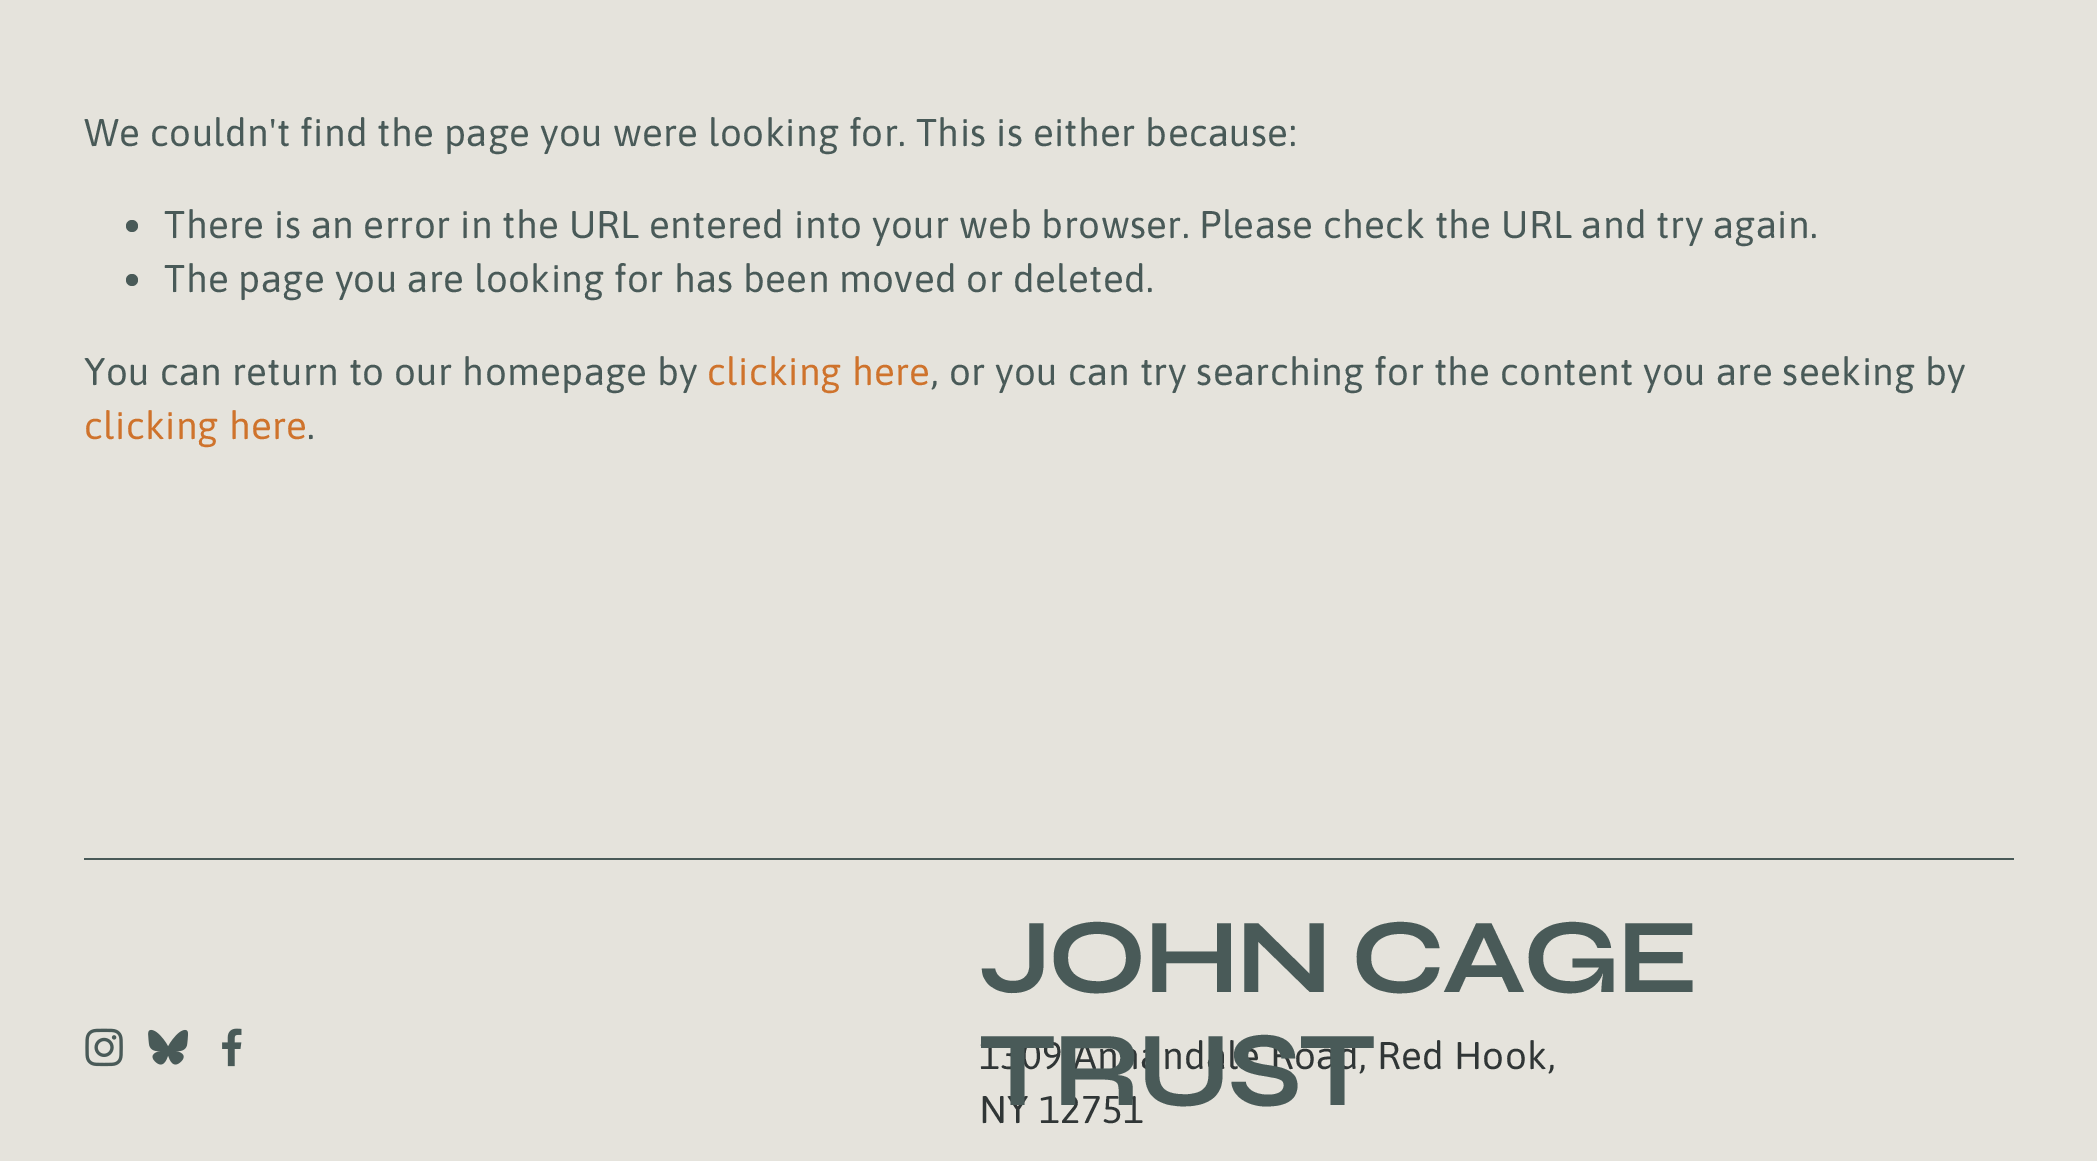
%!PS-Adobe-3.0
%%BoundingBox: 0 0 2097 1161
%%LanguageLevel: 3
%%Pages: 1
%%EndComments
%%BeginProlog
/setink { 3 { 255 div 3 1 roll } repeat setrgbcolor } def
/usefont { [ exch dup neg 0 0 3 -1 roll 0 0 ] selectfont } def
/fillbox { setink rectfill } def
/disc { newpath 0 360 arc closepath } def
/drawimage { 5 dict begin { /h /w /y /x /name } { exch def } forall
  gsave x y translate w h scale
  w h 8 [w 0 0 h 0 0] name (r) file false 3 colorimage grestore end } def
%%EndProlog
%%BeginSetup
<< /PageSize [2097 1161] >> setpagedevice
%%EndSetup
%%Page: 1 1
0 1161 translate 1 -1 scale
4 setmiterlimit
0 0 2097 1161 229 227 220 fillbox
/Asap-Regular 38.5 usefont
73 90 88 setink
84 146 moveto 0.4 0 (We couldn't find the page you were looking for. This is either because:) ashow
132 226 6 disc fill
164 238 moveto 0.4 0 (There is an error in the URL entered into your web browser. Please check the URL and try again.) ashow
132 280 6 disc fill
164 292 moveto 0.4 0 (The page you are looking for has been moved or deleted.) ashow
84 385 moveto 0.4 0 (You can return to our homepage by) ashow
207 115 44 setink
707 385 moveto 0.4 0 (clicking here) ashow
73 90 88 setink
931 385 moveto 0.4 0 (, or you can try searching for the content you are seeking by) ashow
207 115 44 setink
84 439 moveto 0.4 0 (clicking here) ashow
73 90 88 setink
307 439 moveto 0.4 0 (.) ashow
84 858 1930 2 73 90 88 fillbox
(assets/img1.rgb) 85 1028 38 39 drawimage
(assets/img2.rgb) 148 1029 40 36 drawimage
(assets/img3.rgb) 222 1028 20 39 drawimage
/Syne-Bold 106.5 usefont
979 992 moveto -3.25 0 (JOHN CAGE) ashow
/Asap-Regular 38.5 usefont
48 54 54 setink
979 1069 moveto 0.4 0 (1309 Annandale Road, Red Hook,) ashow
979 1123 moveto 0.4 0 (NY 12751) ashow
/Syne-Bold 106.5 usefont
73 90 88 setink
979 1105 moveto -3.25 0 (TRUST) ashow
showpage
%%EOF
